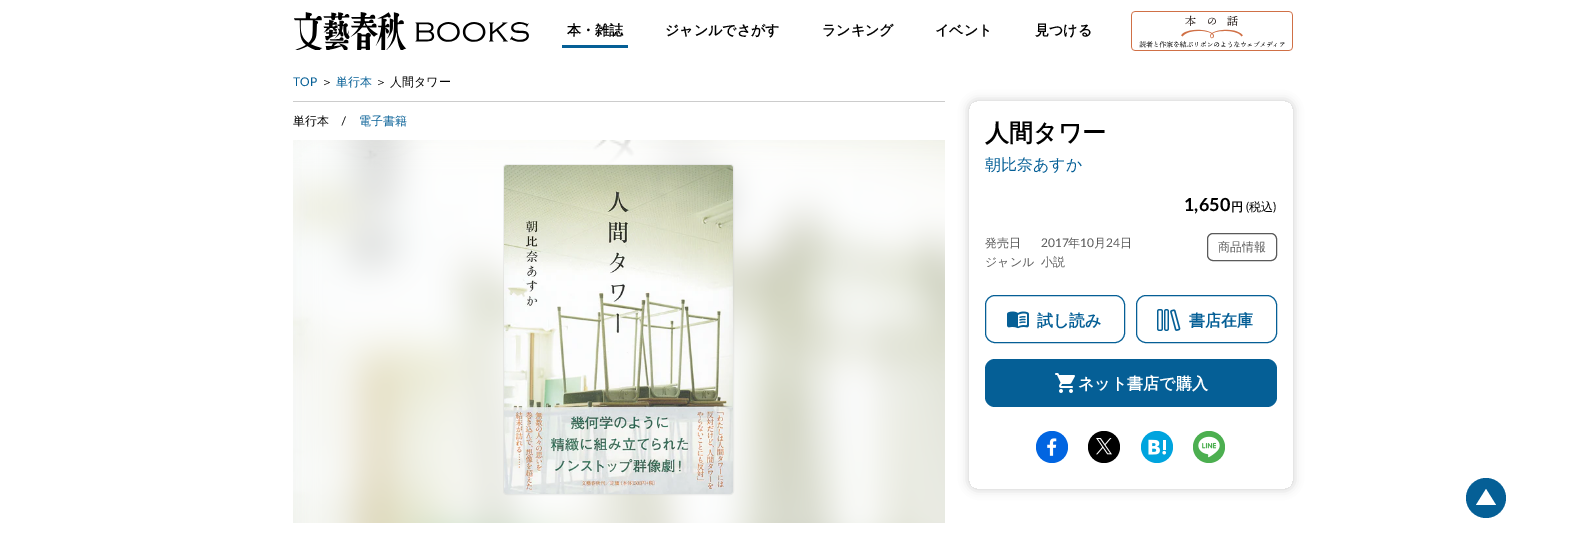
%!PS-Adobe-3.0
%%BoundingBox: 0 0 1585 545
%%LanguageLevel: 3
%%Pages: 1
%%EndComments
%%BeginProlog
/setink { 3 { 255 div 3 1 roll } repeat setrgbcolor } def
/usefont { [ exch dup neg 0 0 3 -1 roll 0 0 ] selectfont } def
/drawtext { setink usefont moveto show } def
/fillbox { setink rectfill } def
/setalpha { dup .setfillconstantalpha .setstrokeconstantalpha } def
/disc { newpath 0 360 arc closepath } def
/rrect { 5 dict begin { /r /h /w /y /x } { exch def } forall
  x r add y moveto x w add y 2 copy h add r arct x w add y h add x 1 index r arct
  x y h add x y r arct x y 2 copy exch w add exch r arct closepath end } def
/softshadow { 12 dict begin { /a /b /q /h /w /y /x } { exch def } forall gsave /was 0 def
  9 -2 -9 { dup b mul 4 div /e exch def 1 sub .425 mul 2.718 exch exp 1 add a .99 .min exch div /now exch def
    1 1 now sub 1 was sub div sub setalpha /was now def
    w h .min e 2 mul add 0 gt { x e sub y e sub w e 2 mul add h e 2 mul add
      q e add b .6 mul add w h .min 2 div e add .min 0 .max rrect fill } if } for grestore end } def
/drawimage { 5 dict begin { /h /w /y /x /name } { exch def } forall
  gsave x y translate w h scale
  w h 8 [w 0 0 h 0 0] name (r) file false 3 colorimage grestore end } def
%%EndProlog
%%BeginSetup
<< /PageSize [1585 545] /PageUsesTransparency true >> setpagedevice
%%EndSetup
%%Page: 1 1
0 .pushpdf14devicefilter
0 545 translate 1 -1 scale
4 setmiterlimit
0 0 1585 545 255 255 255 fillbox
(assets/img1.rgb) 294 12 235 38 drawimage
562 45 66 3 5 95 150 fillbox
(本・雑誌) 567 35 /WenQuanYiZenHei-Bold 14 0 0 0 drawtext
(ジャンルでさがす) 665 35 /WenQuanYiZenHei-Bold 14 0 0 0 drawtext
(ランキング) 822 35 /WenQuanYiZenHei-Bold 14 0 0 0 drawtext
(イベント) 935 35 /WenQuanYiZenHei-Bold 14 0 0 0 drawtext
(見つける) 1035 35 /WenQuanYiZenHei-Bold 14 0 0 0 drawtext
(assets/img2.rgb) 1131 11 162 40 drawimage
(TOP) 293 86 /Lato-Regular 12 5 95 150 drawtext
(＞) 321 86 /WenQuanYiZenHei-Medium 12 0 0 0 drawtext
(単行本) 336 86 /WenQuanYiZenHei-Medium 12 5 95 150 drawtext
(＞) 375 86 /WenQuanYiZenHei-Medium 12 0 0 0 drawtext
(人間タワー) 390 86 /WenQuanYiZenHei-Medium 12 0 0 0 drawtext
293 101 652 1 204 204 204 fillbox
(単行本) 293 125 /WenQuanYiZenHei-Medium 12 0 0 0 drawtext
(/) 341 125 /Lato-Regular 12 0 0 0 drawtext
(電子書籍) 359 125 /WenQuanYiZenHei-Medium 12 5 95 150 drawtext
(assets/img3.rgb) 293 140 652 383 drawimage
(assets/img4.rgb) 293 140 652 383 drawimage
0.3 setalpha
204 204 204 setink
503.5 164.5 230 330 3.5 rrect stroke
1 setalpha
(assets/img5.rgb) 504 165 229 329 drawimage
gsave
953 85 moveto 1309 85 lineto 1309 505 lineto 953 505 lineto closepath 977 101 moveto 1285 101 lineto 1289.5 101 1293 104.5 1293 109 curveto 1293 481 lineto 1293 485.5 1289.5 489 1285 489 curveto 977 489 lineto 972.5 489 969 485.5 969 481 curveto 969 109 lineto 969 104.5 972.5 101 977 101 curveto closepath eoclip newpath
0 0 0 setink
969 101 324 388 8 5 0.2 softshadow
grestore
(人間タワー) 985 141 /WenQuanYiZenHei-Bold 24 0 0 0 drawtext
(朝比奈あすか) 985 170 /WenQuanYiZenHei-Medium 16 5 95 150 drawtext
(1,650) 1184 211 /Lato-Bold 18 0 0 0 drawtext
(円) 1231 211 /WenQuanYiZenHei-Bold 12 0 0 0 drawtext
(\() 1246 211 /Lato-Regular 12 0 0 0 drawtext
(税込) 1249 211 /WenQuanYiZenHei-Medium 12 0 0 0 drawtext
(\)) 1273 211 /Lato-Regular 12 0 0 0 drawtext
(発売日) 985 247 /WenQuanYiZenHei-Medium 12 90 90 90 drawtext
(2017) 1041 247 /Lato-Regular 12 90 90 90 drawtext
(年) 1068 247 /WenQuanYiZenHei-Medium 12 90 90 90 drawtext
(10) 1080 247 /Lato-Regular 12 90 90 90 drawtext
(月) 1094 247 /WenQuanYiZenHei-Medium 12 90 90 90 drawtext
(24) 1106 247 /Lato-Regular 12 90 90 90 drawtext
(日) 1120 247 /WenQuanYiZenHei-Medium 12 90 90 90 drawtext
(ジャンル) 985 266 /WenQuanYiZenHei-Medium 12 90 90 90 drawtext
(小説) 1041 266 /WenQuanYiZenHei-Medium 12 90 90 90 drawtext
1207.5 233.5 69 27 5.5 rrect stroke
(商品情報) 1218 251 /WenQuanYiZenHei-Medium 12 90 90 90 drawtext
(assets/img6.rgb) 1007 311 22 18 drawimage
5 95 150 setink
985.5 295.5 139 47 9.5 rrect stroke
(試し読み) 1037 326 /WenQuanYiZenHei-Bold 16 5 95 150 drawtext
(assets/img7.rgb) 1157 309 24 22 drawimage
1136.5 295.5 140 47 9.5 rrect stroke
(書店在庫) 1189 326 /WenQuanYiZenHei-Bold 16 5 95 150 drawtext
985 359 292 48 10 rrect fill
(assets/img8.rgb) 1055 373 20 20 drawimage
(ネット書店で購入) 1078 389 /WenQuanYiZenHei-Bold 16 255 255 255 drawtext
1 101 225 setink
1052 447 16 disc fill
(assets/img9.rgb) 1047 438 10 18 drawimage
0 0 0 setink
1104 447 16 disc fill
(assets/img10.rgb) 1096 438 16 17 drawimage
0 164 222 setink
1157 447 16 disc fill
(assets/img11.rgb) 1148 439 18 16 drawimage
76 175 80 setink
1209 447 16 disc fill
(assets/img12.rgb) 1198 436 22 22 drawimage
5 95 150 setink
1486 498 20 disc fill
255 255 255 setink
1496 505 moveto 1476 505 lineto 1486 489 lineto closepath fill
.poppdf14devicefilter showpage
%%EOF
